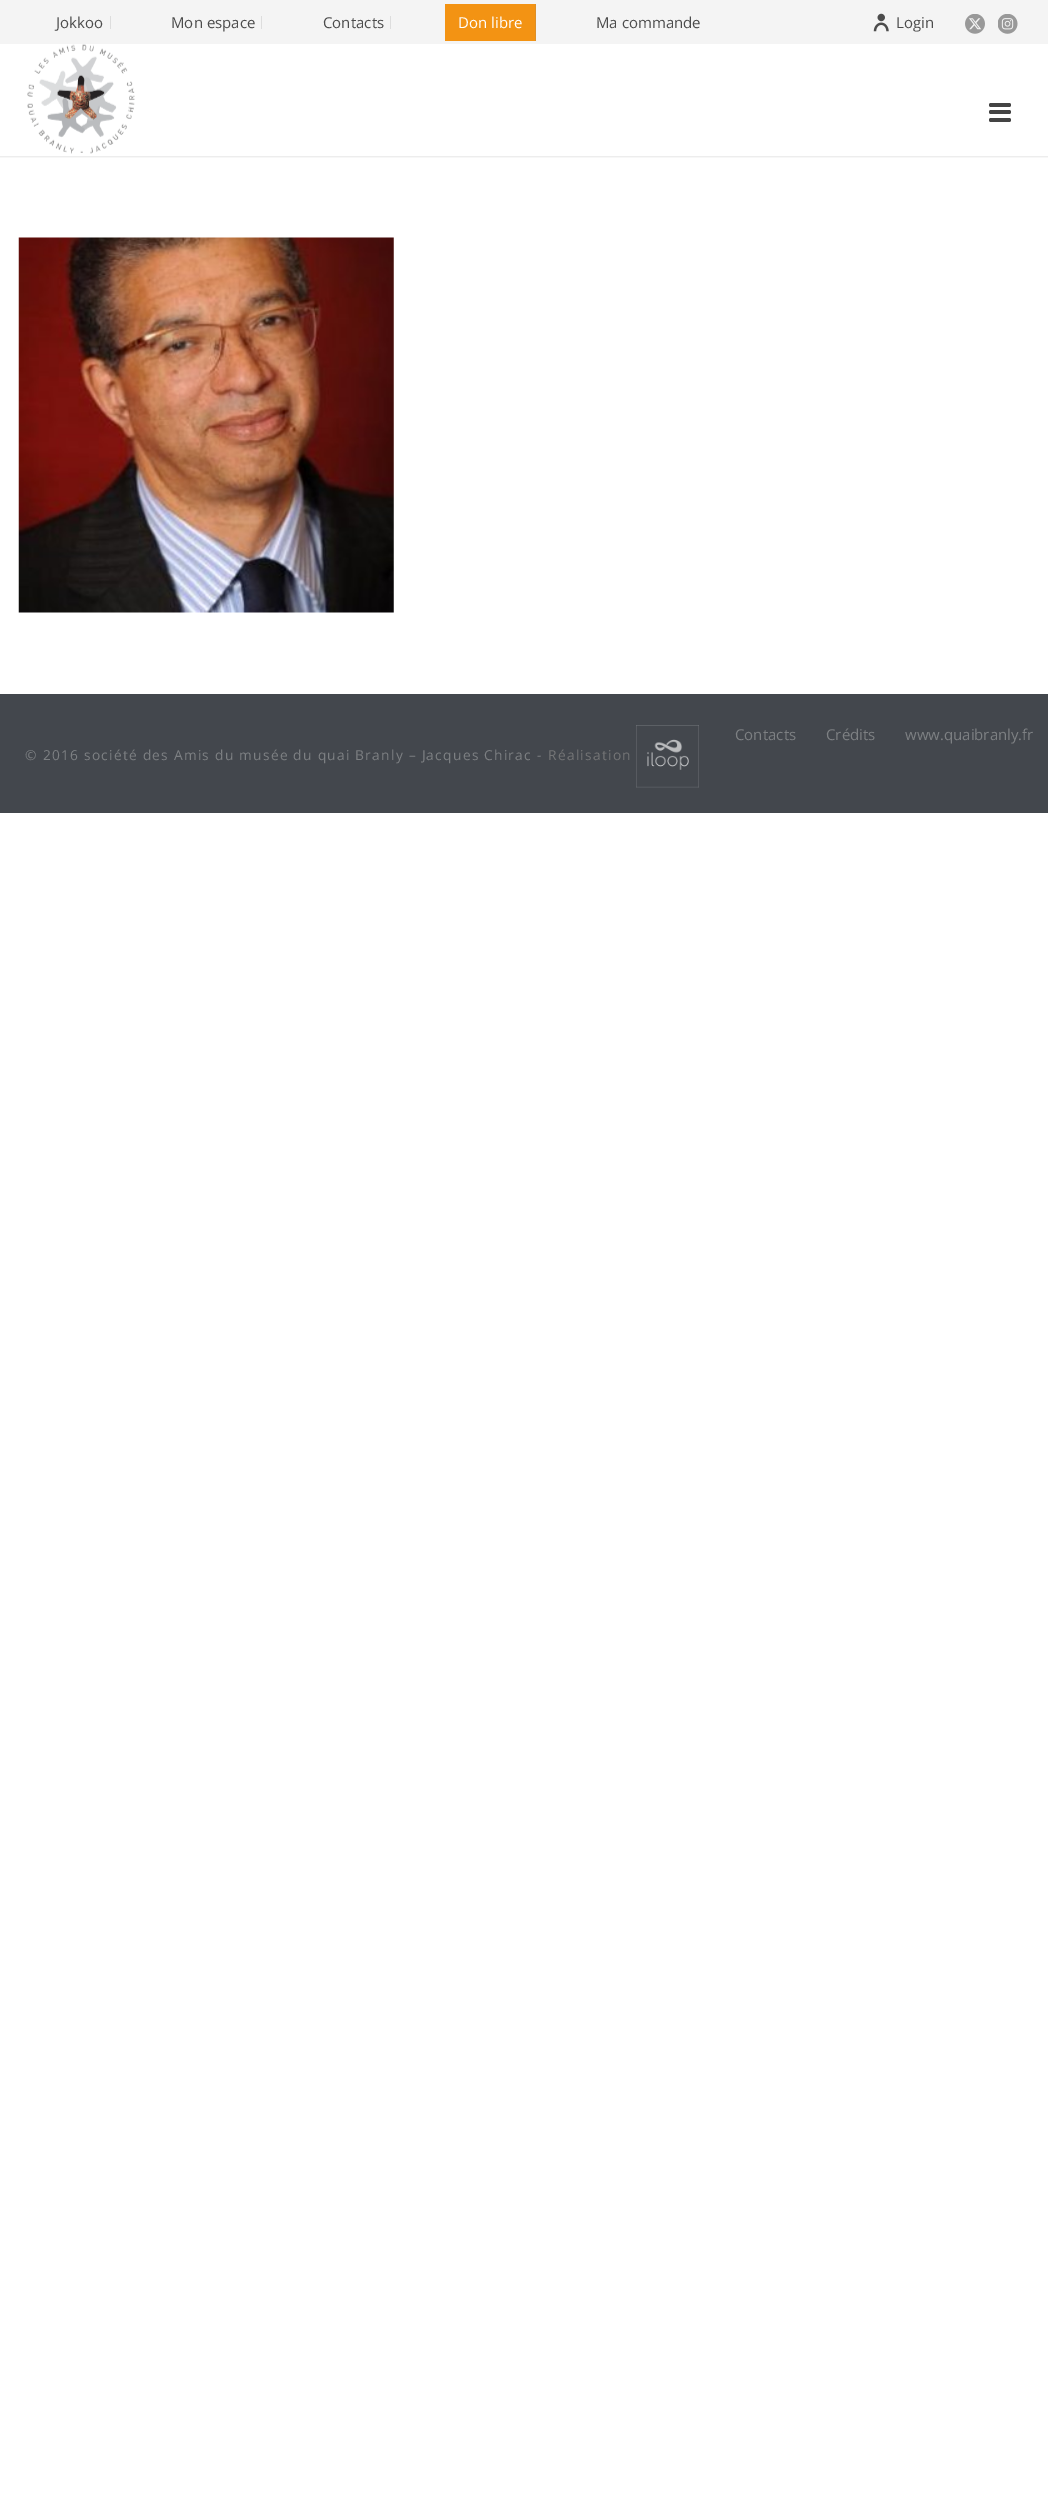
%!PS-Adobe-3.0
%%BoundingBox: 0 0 1048 2514
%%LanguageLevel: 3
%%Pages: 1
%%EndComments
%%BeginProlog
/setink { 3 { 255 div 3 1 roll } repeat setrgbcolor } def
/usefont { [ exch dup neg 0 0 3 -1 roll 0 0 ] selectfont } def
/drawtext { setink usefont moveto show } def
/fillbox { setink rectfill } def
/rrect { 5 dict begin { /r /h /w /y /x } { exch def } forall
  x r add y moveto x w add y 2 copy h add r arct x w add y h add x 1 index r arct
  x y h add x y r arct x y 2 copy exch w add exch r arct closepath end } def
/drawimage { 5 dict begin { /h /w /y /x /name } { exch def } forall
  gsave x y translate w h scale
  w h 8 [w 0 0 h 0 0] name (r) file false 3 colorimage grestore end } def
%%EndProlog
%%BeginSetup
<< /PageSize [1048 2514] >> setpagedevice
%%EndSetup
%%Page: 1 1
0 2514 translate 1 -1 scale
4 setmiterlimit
0 0 1048 2514 255 255 255 fillbox
0 157 1048 1 247 247 247 fillbox
0 156 1048 1 237 237 237 fillbox
0 0 1048 44 244 244 244 fillbox
110 16 1 13 221 221 221 fillbox
(Jokkoo) 56 28 /OpenSans-Regular 15 76 76 76 drawtext
261 16 1 13 221 221 221 fillbox
(Mon espace) 171 28 /OpenSans-Regular 15 76 76 76 drawtext
390 16 1 13 221 221 221 fillbox
(Contacts) 323 28 /OpenSans-Regular 15 76 76 76 drawtext
445 4 90 37 243 147 19 fillbox
535 4 1 37 220 143 41 fillbox
(Don libre) 458 28 /OpenSans-Regular 15 255 255 255 drawtext
(Ma commande) 596 28 /OpenSans-Regular 15 76 76 76 drawtext
(assets/img1.rgb) 873 13 16 19 drawimage
(Login) 896 28 /OpenSans-Regular 15 76 76 76 drawtext
(assets/img2.rgb) 965 14 20 20 drawimage
(assets/img3.rgb) 998 14 20 20 drawimage
(assets/img4.rgb) 27 44 108 110 drawimage
68 68 68 setink
989 103 22 4 2 rrect fill
989 110 22 4 2 rrect fill
989 118 22 4 2 rrect fill
(assets/img5.rgb) 18 237 376 376 drawimage
0 694 1048 119 67 71 77 fillbox
(Contacts) 735 740 /OpenSans-Regular 15 125 128 131 drawtext
(Crédits) 826 740 /OpenSans-Regular 15 125 128 131 drawtext
(www.quaibranly.fr) 905 740 /OpenSans-Regular 15 125 128 131 drawtext
/OpenSans-Regular 13.75 usefont
25 760 moveto 1.25 0 (© 2016 société des Amis du musée du quai Branly – Jacques Chirac -) ashow
116 117 118 setink
548 760 moveto 1.25 0 (Réalisation) ashow
(assets/img6.rgb) 636 725 63 63 drawimage
showpage
%%EOF
